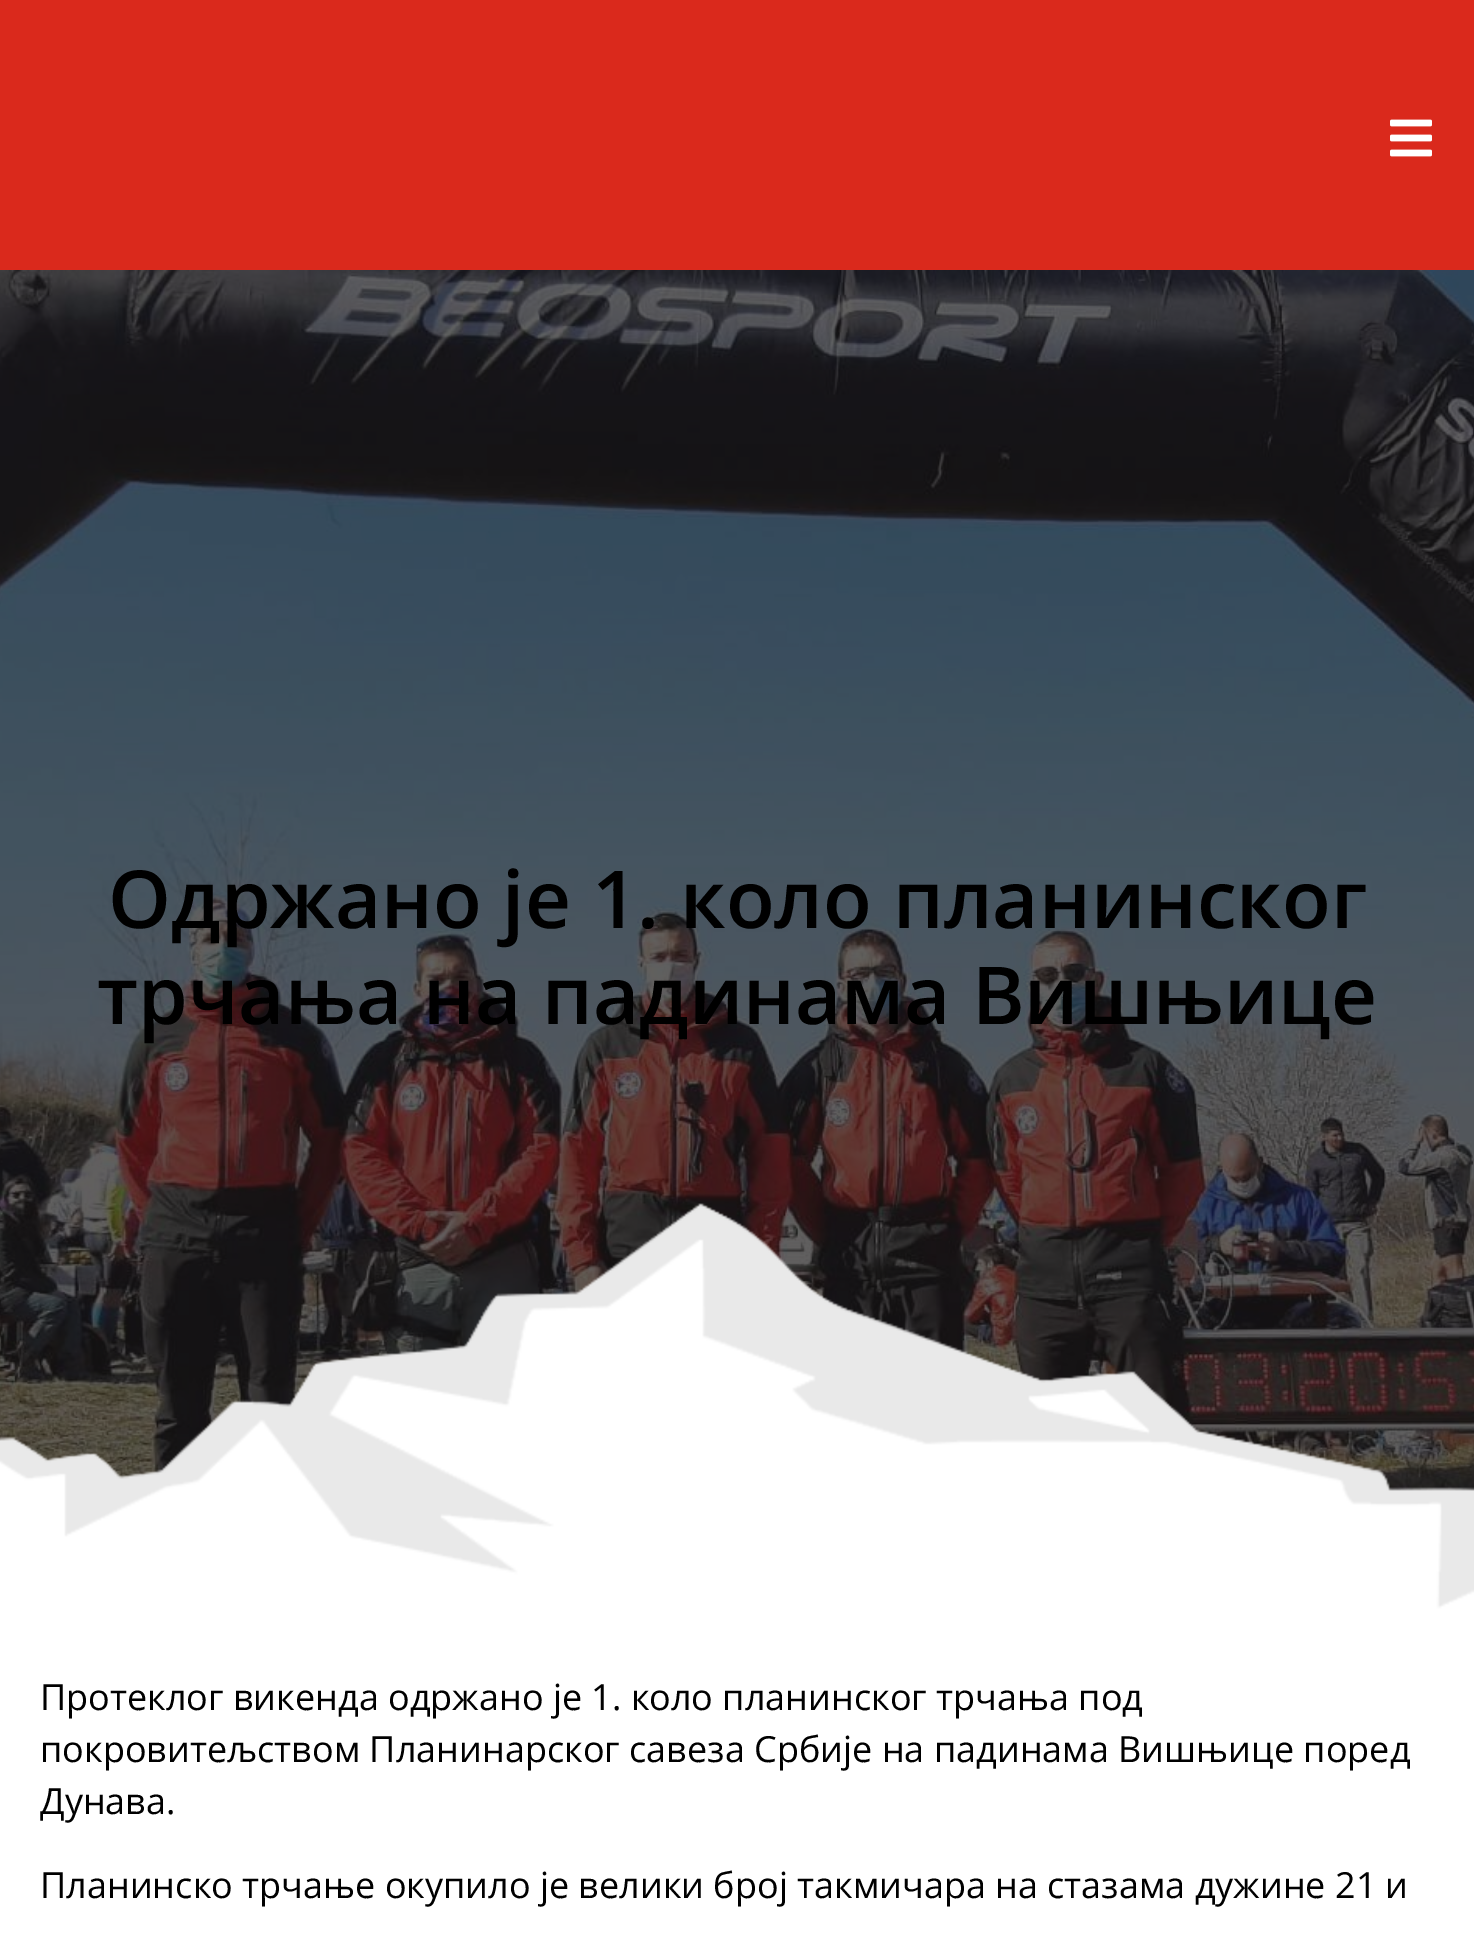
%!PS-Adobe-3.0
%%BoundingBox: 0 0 1474 1938
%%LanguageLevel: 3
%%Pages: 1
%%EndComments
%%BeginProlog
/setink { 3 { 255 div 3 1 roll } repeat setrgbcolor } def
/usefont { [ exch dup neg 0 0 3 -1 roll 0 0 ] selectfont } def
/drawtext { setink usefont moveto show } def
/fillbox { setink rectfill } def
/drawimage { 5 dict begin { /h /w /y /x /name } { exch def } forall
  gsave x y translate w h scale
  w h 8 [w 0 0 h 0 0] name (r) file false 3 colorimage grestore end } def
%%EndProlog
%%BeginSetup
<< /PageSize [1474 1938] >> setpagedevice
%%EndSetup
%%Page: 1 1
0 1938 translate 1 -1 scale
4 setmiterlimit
0 0 1474 1938 255 255 255 fillbox
0 0 1474 270 218 41 28 fillbox
(assets/img1.rgb) 1390 119 42 38 drawimage
(assets/img2.rgb) 0 270 1474 1221 drawimage
(Одржано је 1. коло планинског) 108 928 /OpenSans-SemiBold 80 0 0 0 drawtext
(трчања на падинама Вишњице) 97 1024 /OpenSans-SemiBold 80 0 0 0 drawtext
(assets/img3.rgb) 0 1203 1474 467 drawimage
(Протеклог викенда одржано је 1. коло планинског трчања под) 40 1710 /OpenSans-Regular 36 0 0 0 drawtext
(покровитељством Планинарског савеза Србије на падинама Вишњице поред) 40 1762 /OpenSans-Regular 36 0 0 0 drawtext
(Дунава.) 40 1814 /OpenSans-Regular 36 0 0 0 drawtext
(Планинско трчање окупило је велики број такмичара на стазама дужине 21 и) 40 1898 /OpenSans-Regular 36 0 0 0 drawtext
showpage
%%EOF
